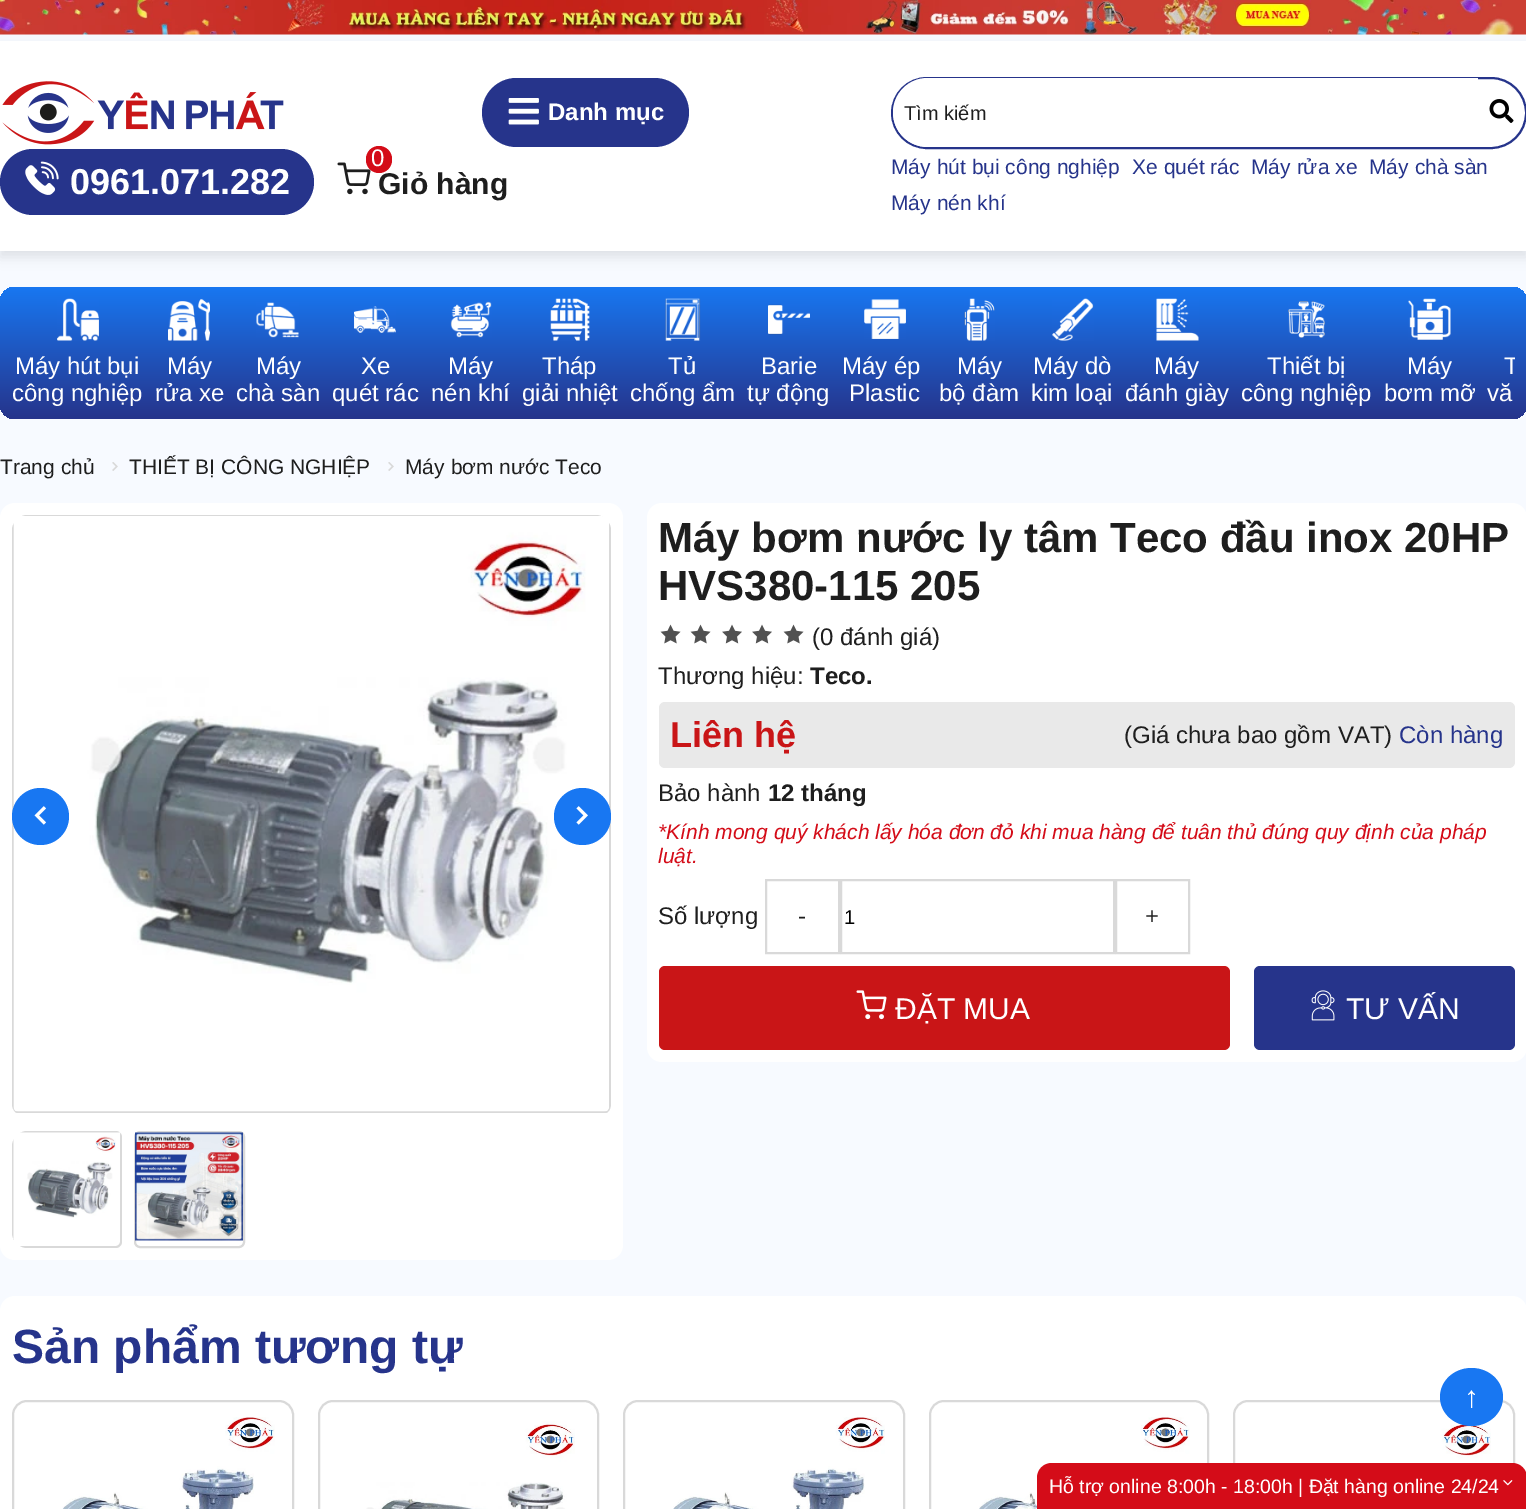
%!PS-Adobe-3.0
%%BoundingBox: 0 0 1526 1509
%%LanguageLevel: 3
%%Pages: 1
%%EndComments
%%BeginProlog
/setink { 3 { 255 div 3 1 roll } repeat setrgbcolor } def
/usefont { [ exch dup neg 0 0 3 -1 roll 0 0 ] selectfont } def
/drawtext { setink usefont moveto show } def
/fillbox { setink rectfill } def
/setalpha { dup .setfillconstantalpha .setstrokeconstantalpha } def
/disc { newpath 0 360 arc closepath } def
/rrect { 5 dict begin { /r /h /w /y /x } { exch def } forall
  x r add y moveto x w add y 2 copy h add r arct x w add y h add x 1 index r arct
  x y h add x y r arct x y 2 copy exch w add exch r arct closepath end } def
/softshadow { 12 dict begin { /a /b /q /h /w /y /x } { exch def } forall gsave /was 0 def
  9 -2 -9 { dup b mul 4 div /e exch def 1 sub .425 mul 2.718 exch exp 1 add a .99 .min exch div /now exch def
    1 1 now sub 1 was sub div sub setalpha /was now def
    w h .min e 2 mul add 0 gt { x e sub y e sub w e 2 mul add h e 2 mul add
      q e add b .6 mul add w h .min 2 div e add .min 0 .max rrect fill } if } for grestore end } def
/drawimage { 5 dict begin { /h /w /y /x /name } { exch def } forall
  gsave x y translate w h scale
  w h 8 [w 0 0 h 0 0] name (r) file false 3 colorimage grestore end } def
%%EndProlog
%%BeginSetup
<< /PageSize [1526 1509] /PageUsesTransparency true >> setpagedevice
%%EndSetup
%%Page: 1 1
0 .pushpdf14devicefilter
0 1509 translate 1 -1 scale
4 setmiterlimit
0 0 1526 1509 247 250 255 fillbox
(assets/img1.rgb) 0 0 1526 35 drawimage
0 0 0 setink
0 47 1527 210 0 6 0.1 softshadow
0 41 1526 210 255 255 255 fillbox
(assets/img2.rgb) 2 81 282 64 drawimage
38 52 139 setink
482 78 207 69 34.5 rrect fill
(assets/img3.rgb) 508 98 31 27 drawimage
(Danh mục) 548 120 /LiberationSans-Bold 24 255 255 255 drawtext
38 52 139 setink
2 setlinewidth
892 78 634 70 35 rrect stroke
255 255 255 setink
927.5 78 moveto 1478 78 lineto 1478 147 lineto 927.5 147 lineto 908.5 147 893 131.5 893 112.5 curveto 893 93.5 908.5 78 927.5 78 curveto closepath fill
(Tìm kiếm) 904 120 /LiberationSans-Regular 20 30 30 30 drawtext
(assets/img4.rgb) 1489 99 25 24 drawimage
(Máy hút bụi công nghiệp) 891 174 /LiberationSans-Regular 21 38 52 139 drawtext
(Xe quét rác) 1132 174 /LiberationSans-Regular 21 38 52 139 drawtext
(Máy rửa xe) 1251 174 /LiberationSans-Regular 21 38 52 139 drawtext
(Máy chà sàn) 1369 174 /LiberationSans-Regular 21 38 52 139 drawtext
(Máy nén khí) 891 210 /LiberationSans-Regular 21 38 52 139 drawtext
0 149 314 66 33 rrect fill
(assets/img5.rgb) 25 161 34 34 drawimage
(0961.071.282) 70 194 /LiberationSans-Bold 36 255 255 255 drawtext
(assets/img6.rgb) 337 162 34 33 drawimage
(Giỏ hàng) 378 194 /LiberationSans-Bold 30 30 30 30 drawtext
212 12 24 setink
366 146 26 27 13 rrect fill
(0) 371 166 /LiberationSans-Regular 24 255 255 255 drawtext
gsave 0 287 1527 132 15 rrect clip newpath
<< /ShadingType 2 /ColorSpace /DeviceRGB /Coords [764 286 764 419] /Extend [true true] /Function << /FunctionType 2 /Domain [0 1] /C0 [0.094 0.467 0.949] /C1 [0.149 0.204 0.545] /N 1 >> >> shfill grestore
(assets/img7.rgb) 57 298 42 43 drawimage
(Máy hút bụi) 15 374 /LiberationSans-Regular 24 255 255 255 drawtext
(công nghiệp) 12 401 /LiberationSans-Regular 24 255 255 255 drawtext
(assets/img8.rgb) 168 298 42 43 drawimage
(Máy) 167 374 /LiberationSans-Regular 24 255 255 255 drawtext
(rửa xe) 155 401 /LiberationSans-Regular 24 255 255 255 drawtext
(assets/img9.rgb) 256 302 43 36 drawimage
(Máy) 256 374 /LiberationSans-Regular 24 255 255 255 drawtext
(chà sàn) 236 401 /LiberationSans-Regular 24 255 255 255 drawtext
(assets/img10.rgb) 354 306 42 27 drawimage
(Xe) 361 374 /LiberationSans-Regular 24 255 255 255 drawtext
(quét rác) 332 401 /LiberationSans-Regular 24 255 255 255 drawtext
(assets/img11.rgb) 450 301 42 37 drawimage
(Máy) 448 374 /LiberationSans-Regular 24 255 255 255 drawtext
(nén khí) 431 401 /LiberationSans-Regular 24 255 255 255 drawtext
(assets/img12.rgb) 550 298 40 43 drawimage
(Tháp) 542 374 /LiberationSans-Regular 24 255 255 255 drawtext
(giải nhiệt) 522 401 /LiberationSans-Regular 24 255 255 255 drawtext
(assets/img13.rgb) 665 298 36 43 drawimage
(Tủ) 668 374 /LiberationSans-Regular 24 255 255 255 drawtext
(chống ẩm) 630 401 /LiberationSans-Regular 24 255 255 255 drawtext
(assets/img14.rgb) 768 304 42 31 drawimage
(Barie) 761 374 /LiberationSans-Regular 24 255 255 255 drawtext
(tự động) 747 401 /LiberationSans-Regular 24 255 255 255 drawtext
(assets/img15.rgb) 864 299 42 40 drawimage
(Máy ép) 842 374 /LiberationSans-Regular 24 255 255 255 drawtext
(Plastic) 849 401 /LiberationSans-Regular 24 255 255 255 drawtext
(assets/img16.rgb) 964 298 31 43 drawimage
(Máy) 957 374 /LiberationSans-Regular 24 255 255 255 drawtext
(bộ đàm) 939 401 /LiberationSans-Regular 24 255 255 255 drawtext
(assets/img17.rgb) 1052 298 42 43 drawimage
(Máy dò) 1033 374 /LiberationSans-Regular 24 255 255 255 drawtext
(kim loại) 1031 401 /LiberationSans-Regular 24 255 255 255 drawtext
(assets/img18.rgb) 1156 298 43 43 drawimage
(Máy) 1154 374 /LiberationSans-Regular 24 255 255 255 drawtext
(đánh giày) 1125 401 /LiberationSans-Regular 24 255 255 255 drawtext
(assets/img19.rgb) 1288 301 37 37 drawimage
(Thiết bị) 1267 374 /LiberationSans-Regular 24 255 255 255 drawtext
(công nghiệp) 1241 401 /LiberationSans-Regular 24 255 255 255 drawtext
(assets/img20.rgb) 1408 298 43 42 drawimage
(Máy) 1407 374 /LiberationSans-Regular 24 255 255 255 drawtext
(bơm mỡ) 1384 401 /LiberationSans-Regular 24 255 255 255 drawtext
gsave
12 299 1503 108 rectclip
(T) 1504 374 /LiberationSans-Regular 24 255 255 255 drawtext
grestore
(vă) 1487 401 /LiberationSans-Regular 24 255 255 255 drawtext
(Trang chủ) 0 474 /LiberationSans-Regular 21 30 30 30 drawtext
(assets/img21.rgb) 112 462 6 9 drawimage
(THIẾT BỊ CÔNG NGHIỆP) 129 474 /LiberationSans-Regular 21 30 30 30 drawtext
(assets/img21.rgb) 388 462 6 9 drawimage
(Máy bơm nước Teco) 405 474 /LiberationSans-Regular 21 30 30 30 drawtext
255 255 255 setink
0 503 623 757 15 rrect fill
217 217 217 setink
12 530 moveto 12 1104 lineto 12 1107 13 1109 14 1111 curveto 15 1112 16 1113 18 1113 curveto 605 1113 lineto 607 1113 608 1112 609 1111 curveto 610 1109 611 1107 611 1104 curveto 611 530 lineto 611 527 610 525 609 523 curveto 609 1107 lineto 609 1109 607 1111 605 1111 curveto 18 1111 lineto 16 1111 14 1109 14 1107 curveto 14 523 lineto 13 525 12 527 12 530 curveto closepath 27 515 moveto 24 515 22 516 20 517 curveto 603 517 lineto 601 516 599 515 596 515 curveto closepath eofill
(assets/img22.rgb) 13 516 596 596 drawimage
24 119 242 setink
40.5 816.5 28.5 disc fill
(assets/img23.rgb) 34 806 12 19 drawimage
582.5 816.5 28.5 disc fill
(assets/img24.rgb) 576 806 12 19 drawimage
217 217 217 setink
12 1146 moveto 12 1233 lineto 12 1236 13 1238 14 1240 curveto 14 1139 lineto 13 1141 12 1143 12 1146 curveto closepath 27 1131 moveto 24 1131 22 1132 20 1133 curveto 116 1133 lineto 118 1133 120 1135 120 1137 curveto 120 1242 lineto 120 1244 118 1246 116 1246 curveto 20 1246 lineto 22 1247 24 1248 27 1248 curveto 116 1248 lineto 119 1248 122 1245 122 1242 curveto 122 1137 lineto 122 1134 119 1131 116 1131 curveto closepath eofill
(assets/img25.rgb) 13 1132 107 107 drawimage
135 1132 109 115 5 rrect stroke
(assets/img26.rgb) 135 1132 108 109 drawimage
255 255 255 setink
647 503 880 559 15 rrect fill
(Máy bơm nước ly tâm Teco đầu inox 20HP) 658 552 /LiberationSans-Bold 42 30 30 30 drawtext
(HVS380-115 205) 658 600 /LiberationSans-Bold 42 30 30 30 drawtext
(assets/img27.rgb) 660 624 21 20 drawimage
(assets/img27.rgb) 690 624 21 20 drawimage
(assets/img28.rgb) 722 624 20 20 drawimage
(assets/img28.rgb) 752 624 20 20 drawimage
(assets/img27.rgb) 783 624 21 20 drawimage
(\(0 đánh giá\)) 812 645 /LiberationSans-Regular 24 30 30 30 drawtext
(Thương hiệu:) 658 684 /LiberationSans-Regular 24 30 30 30 drawtext
(Teco.) 810 684 /LiberationSans-Bold 24 30 30 30 drawtext
233 233 233 setink
659 702 856 66 6 rrect fill
(Liên hệ) 670 747 /LiberationSans-Bold 36 201 21 23 drawtext
(\(Giá chưa bao gồm VAT\)) 1124 743 /LiberationSans-Regular 24 30 30 30 drawtext
(Còn hàng) 1399 743 /LiberationSans-Regular 24 38 52 139 drawtext
(Bảo hành) 658 801 /LiberationSans-Regular 24 30 30 30 drawtext
(12 tháng) 768 801 /LiberationSans-Bold 24 30 30 30 drawtext
(*Kính mong quý khách lấy hóa đơn đỏ khi mua hàng để tuân thủ đúng quy định của pháp) 658 839 /LiberationSans-Italic 21 212 12 24 drawtext
(luật.) 658 863 /LiberationSans-Italic 21 212 12 24 drawtext
(Số lượng) 658 924 /LiberationSans-Regular 24 30 30 30 drawtext
217 217 217 setink
766 880 73 73 rectstroke
(-) 798 924 /LiberationSans-Regular 24 30 30 30 drawtext
217 217 217 setink
841 880 273 73 rectstroke
(1) 844 924 /LiberationSans-Regular 20 0 0 0 drawtext
217 217 217 setink
1116 880 73 73 rectstroke
(+) 1145 924 /LiberationSans-Regular 24 30 30 30 drawtext
201 21 23 setink
659 966 571 84 6 rrect fill
(assets/img29.rgb) 856 990 31 30 drawimage
(ĐẶT MUA) 895 1019 /LiberationSans-Regular 30 255 255 255 drawtext
38 52 139 setink
1254 966 261 84 6 rrect fill
(assets/img30.rgb) 1311 990 24 31 drawimage
(TƯ VẤN) 1346 1019 /LiberationSans-Regular 30 255 255 255 drawtext
0 1296 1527 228 15 rrect fill
(Sản phẩm tương tự) 12 1363 /LiberationSans-Bold 48 38 52 139 drawtext
217 217 217 setink
13 1401 280 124 14 rrect stroke
(assets/img31.rgb) 62 1417 213 92 drawimage
319 1401 279 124 14 rrect stroke
(assets/img32.rgb) 366 1421 209 88 drawimage
624 1401 280 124 14 rrect stroke
(assets/img33.rgb) 673 1417 212 92 drawimage
930 1401 278 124 14 rrect stroke
(assets/img34.rgb) 979 1417 211 92 drawimage
1234 1401 280 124 14 rrect stroke
(assets/img35.rgb) 1281 1421 210 42 drawimage
24 119 242 setink
1471.5 1368 moveto 1489 1368 1503 1381 1503 1397 curveto 1503 1413 1489 1426 1471.5 1426 curveto 1454 1426 1440 1413 1440 1397 curveto 1440 1381 1454 1368 1471.5 1368 curveto closepath fill
(↑) 1464 1407 /LiberationSans-Regular 30 255 255 255 drawtext
212 12 24 setink
1052 1463 moveto 1512 1463 lineto 1520.5 1463 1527 1469.5 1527 1478 curveto 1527 1509 lineto 1037 1509 lineto 1037 1478 lineto 1037 1469.5 1043.5 1463 1052 1463 curveto closepath fill
(Hỗ trợ online 8:00h - 18:00h | Đặt hàng online 24/24) 1049 1493 /LiberationSans-Regular 19.5 255 255 255 drawtext
(assets/img36.rgb) 1503 1480 10 6 drawimage
.poppdf14devicefilter showpage
%%EOF
